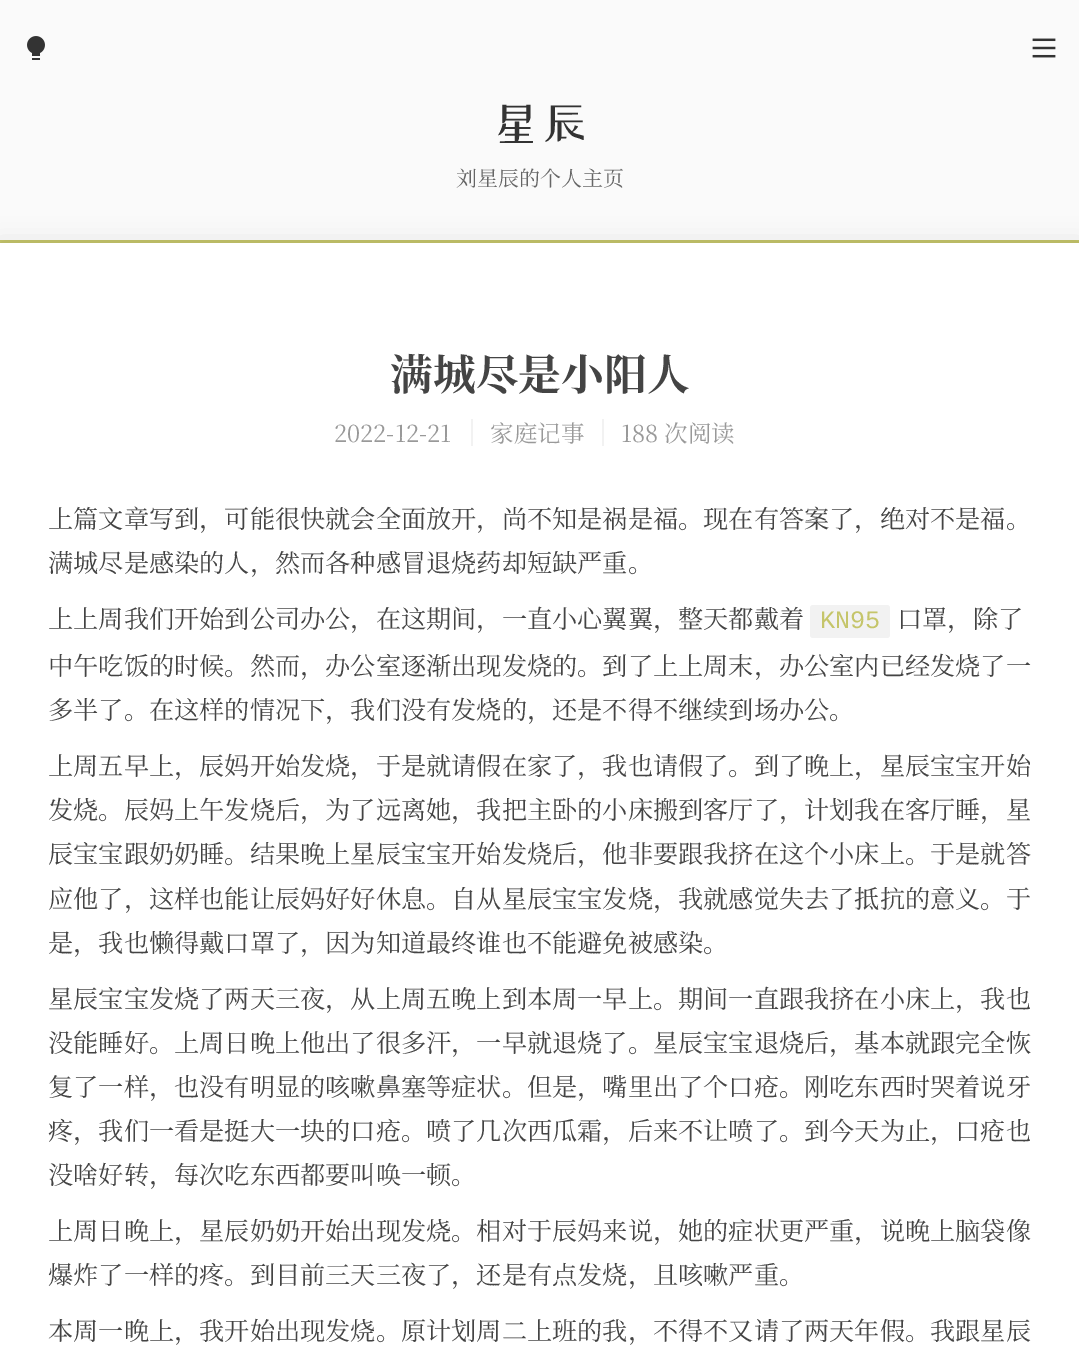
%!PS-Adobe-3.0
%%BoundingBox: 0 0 1079 1368
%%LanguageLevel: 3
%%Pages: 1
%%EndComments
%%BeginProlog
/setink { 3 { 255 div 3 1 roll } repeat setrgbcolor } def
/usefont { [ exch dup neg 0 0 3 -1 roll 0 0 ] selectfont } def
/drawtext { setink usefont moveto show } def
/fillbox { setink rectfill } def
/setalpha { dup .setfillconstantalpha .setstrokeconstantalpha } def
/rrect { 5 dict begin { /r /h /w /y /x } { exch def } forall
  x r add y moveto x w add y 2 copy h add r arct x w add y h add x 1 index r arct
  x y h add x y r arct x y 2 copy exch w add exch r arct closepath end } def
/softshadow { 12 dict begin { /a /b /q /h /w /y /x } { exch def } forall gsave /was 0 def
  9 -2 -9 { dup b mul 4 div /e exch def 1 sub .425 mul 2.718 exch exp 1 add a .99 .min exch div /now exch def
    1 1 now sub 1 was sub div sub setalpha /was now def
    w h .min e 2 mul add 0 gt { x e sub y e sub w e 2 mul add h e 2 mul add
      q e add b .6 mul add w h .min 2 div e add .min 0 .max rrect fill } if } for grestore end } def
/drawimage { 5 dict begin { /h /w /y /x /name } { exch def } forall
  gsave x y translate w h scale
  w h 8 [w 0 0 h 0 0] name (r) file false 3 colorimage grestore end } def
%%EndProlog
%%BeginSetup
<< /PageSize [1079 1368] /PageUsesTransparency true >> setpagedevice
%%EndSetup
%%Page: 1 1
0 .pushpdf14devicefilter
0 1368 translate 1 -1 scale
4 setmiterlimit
0 0 1079 1368 250 250 250 fillbox
0 240 1079 3 197 197 106 fillbox
(assets/img1.rgb) 27 36 18 24 drawimage
(assets/img2.rgb) 1032 38 24 20 drawimage
(星辰) 491 141 /ZCOOLXiaoWei-Regular 48 51 51 51 drawtext
(刘星辰的个人主页) 456 186 /NotoSerifSC-Regular 21 102 102 102 drawtext
0 0 0 setink
0 243 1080 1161 0 12 0.1 softshadow
0 243 1079 1125 255 255 255 fillbox
(满城尽是小阳人) 390 390 /NotoSerifSC-Bold 42.75 68 68 68 drawtext
(2022-12-21) 334 442 /NotoSerifSC-Regular 23.5 153 153 153 drawtext
471 419 2 27 242 242 242 fillbox
(家庭记事) 490 442 /NotoSerifSC-Regular 23.5 153 153 153 drawtext
602 419 2 27 242 242 242 fillbox
(188 次阅读) 621 442 /NotoSerifSC-Regular 23.5 153 153 153 drawtext
(上篇文章写到，可能很快就会全面放开，尚不知是祸是福。现在有答案了，绝对不是福。) 48 528 /NotoSerifSC-Regular 25.2 68 68 68 drawtext
(满城尽是感染的人，然而各种感冒退烧药却短缺严重。) 48 572 /NotoSerifSC-Regular 25.2 68 68 68 drawtext
(上上周我们开始到公司办公，在这期间，一直小心翼翼，整天都戴着) 48 628 /NotoSerifSC-Regular 25.2 68 68 68 drawtext
242 242 242 setink
810 605 80 33 3 rrect fill
(KN95) 820 628 /LiberationMono-Regular 25.2 197 197 106 drawtext
(口罩，除了) 897 628 /NotoSerifSC-Regular 25.2 68 68 68 drawtext
(中午吃饭的时候。然而，办公室逐渐出现发烧的。到了上上周末，办公室内已经发烧了一) 48 675 /NotoSerifSC-Regular 25.2 68 68 68 drawtext
(多半了。在这样的情况下，我们没有发烧的，还是不得不继续到场办公。) 48 719 /NotoSerifSC-Regular 25.2 68 68 68 drawtext
(上周五早上，辰妈开始发烧，于是就请假在家了，我也请假了。到了晚上，星辰宝宝开始) 48 775 /NotoSerifSC-Regular 25.2 68 68 68 drawtext
(发烧。辰妈上午发烧后，为了远离她，我把主卧的小床搬到客厅了，计划我在客厅睡，星) 48 819 /NotoSerifSC-Regular 25.2 68 68 68 drawtext
(辰宝宝跟奶奶睡。结果晚上星辰宝宝开始发烧后，他非要跟我挤在这个小床上。于是就答) 48 863 /NotoSerifSC-Regular 25.2 68 68 68 drawtext
(应他了，这样也能让辰妈好好休息。自从星辰宝宝发烧，我就感觉失去了抵抗的意义。于) 48 908 /NotoSerifSC-Regular 25.2 68 68 68 drawtext
(是，我也懒得戴口罩了，因为知道最终谁也不能避免被感染。) 48 952 /NotoSerifSC-Regular 25.2 68 68 68 drawtext
(星辰宝宝发烧了两天三夜，从上周五晚上到本周一早上。期间一直跟我挤在小床上，我也) 48 1008 /NotoSerifSC-Regular 25.2 68 68 68 drawtext
(没能睡好。上周日晚上他出了很多汗，一早就退烧了。星辰宝宝退烧后，基本就跟完全恢) 48 1052 /NotoSerifSC-Regular 25.2 68 68 68 drawtext
(复了一样，也没有明显的咳嗽鼻塞等症状。但是，嘴里出了个口疮。刚吃东西时哭着说牙) 48 1096 /NotoSerifSC-Regular 25.2 68 68 68 drawtext
(疼，我们一看是挺大一块的口疮。喷了几次西瓜霜，后来不让喷了。到今天为止，口疮也) 48 1140 /NotoSerifSC-Regular 25.2 68 68 68 drawtext
(没啥好转，每次吃东西都要叫唤一顿。) 48 1184 /NotoSerifSC-Regular 25.2 68 68 68 drawtext
(上周日晚上，星辰奶奶开始出现发烧。相对于辰妈来说，她的症状更严重，说晚上脑袋像) 48 1240 /NotoSerifSC-Regular 25.2 68 68 68 drawtext
(爆炸了一样的疼。到目前三天三夜了，还是有点发烧，且咳嗽严重。) 48 1284 /NotoSerifSC-Regular 25.2 68 68 68 drawtext
(本周一晚上，我开始出现发烧。原计划周二上班的我，不得不又请了两天年假。我跟星辰) 48 1340 /NotoSerifSC-Regular 25.2 68 68 68 drawtext
.poppdf14devicefilter showpage
%%EOF
